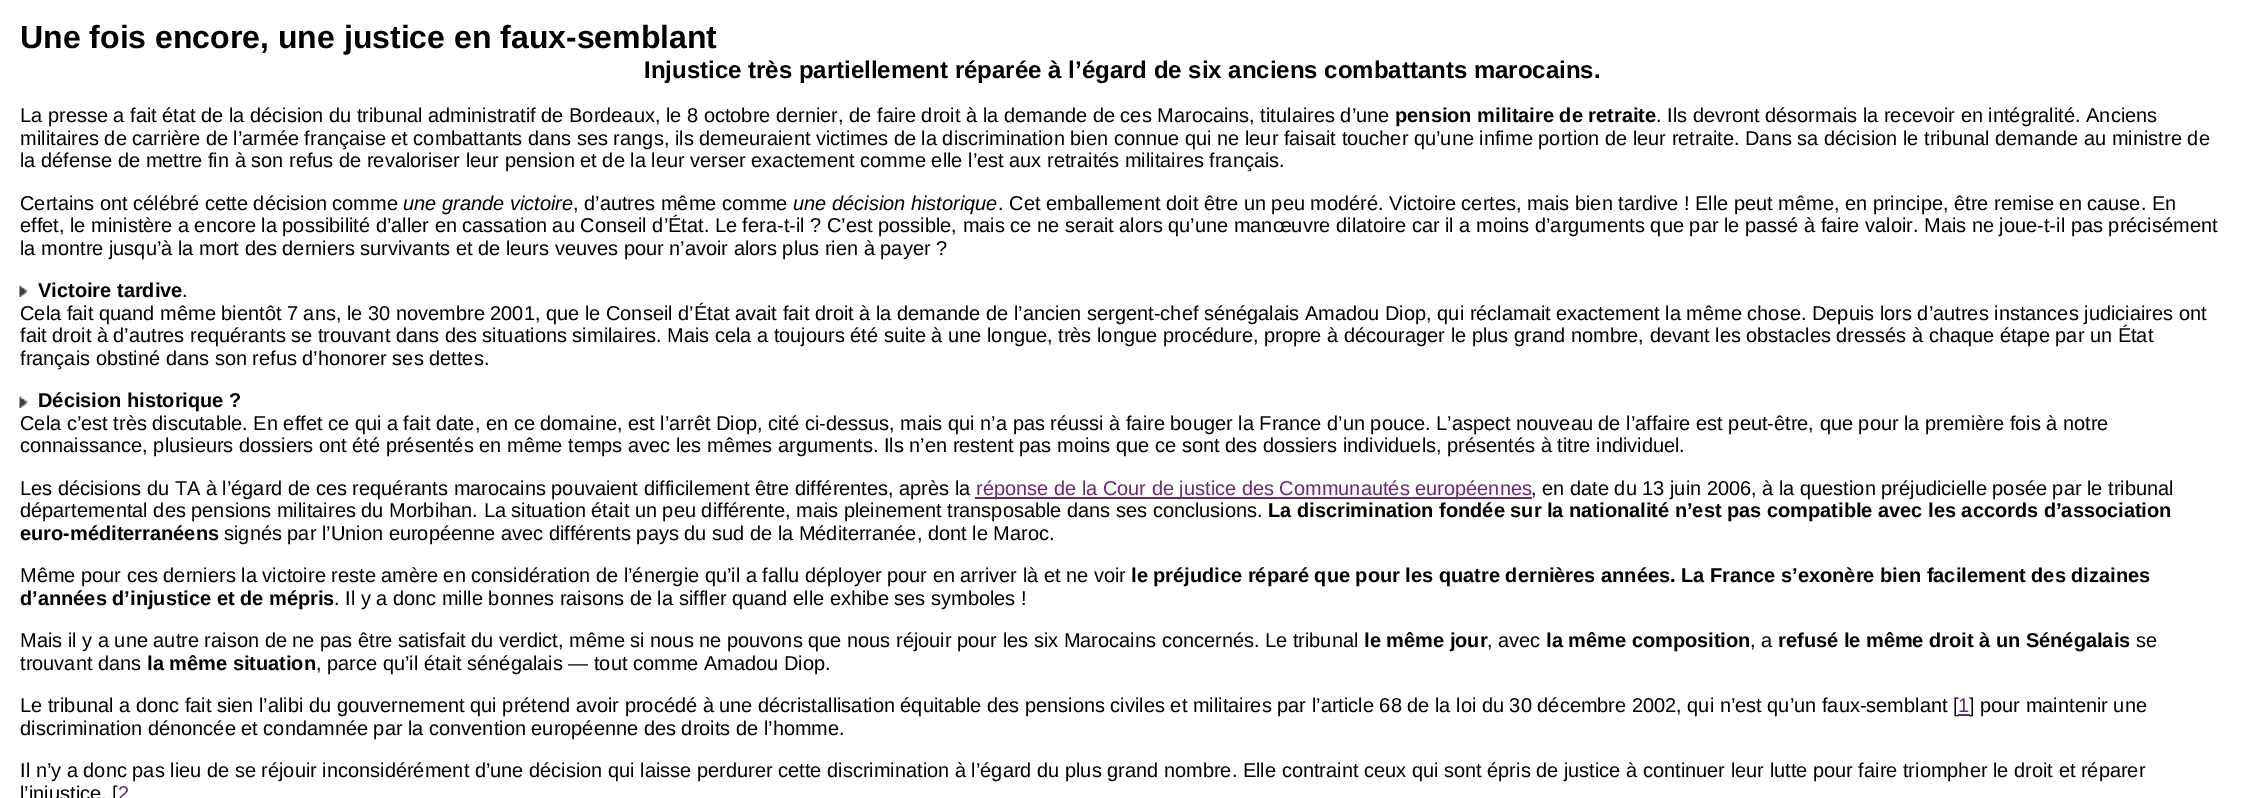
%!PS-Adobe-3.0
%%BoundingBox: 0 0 2243 798
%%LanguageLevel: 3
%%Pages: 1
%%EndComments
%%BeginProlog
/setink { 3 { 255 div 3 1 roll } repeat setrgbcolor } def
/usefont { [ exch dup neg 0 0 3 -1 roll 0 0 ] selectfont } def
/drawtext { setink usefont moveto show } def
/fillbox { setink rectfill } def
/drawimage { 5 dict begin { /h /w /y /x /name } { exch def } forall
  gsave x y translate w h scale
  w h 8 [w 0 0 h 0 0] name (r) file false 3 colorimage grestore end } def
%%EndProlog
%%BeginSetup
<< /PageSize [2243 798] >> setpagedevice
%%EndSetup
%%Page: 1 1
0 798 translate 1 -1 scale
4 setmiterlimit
0 0 2243 798 255 255 255 fillbox
(Une fois encore, une justice en faux-semblant) 20 48 /LiberationSans-Bold 32 0 0 0 drawtext
(Injustice très partiellement réparée à l’égard de six anciens combattants marocains.) 644 78 /LiberationSans-Bold 24 0 0 0 drawtext
(La presse a fait état de la décision du tribunal administratif de Bordeaux, le 8 octobre dernier, de faire droit à la demande de ces Marocains, titulaires d’une) 20 122 /LiberationSans-Regular 20 0 0 0 drawtext
(pension militaire de retraite) 1395 122 /LiberationSans-Bold 20 0 0 0 drawtext
(. Ils devront désormais la recevoir en intégralité. Anciens) 1656 122 /LiberationSans-Regular 20 0 0 0 drawtext
(militaires de carrière de l’armée française et combattants dans ses rangs, ils demeuraient victimes de la discrimination bien connue qui ne leur faisait toucher qu’une infime portion de leur retraite. Dans sa décision le tribunal demande au ministre de) 20 145 /LiberationSans-Regular 20 0 0 0 drawtext
(la défense de mettre fin à son refus de revaloriser leur pension et de la leur verser exactement comme elle l’est aux retraités militaires français.) 20 167 /LiberationSans-Regular 20 0 0 0 drawtext
(Certains ont célébré cette décision comme) 20 210 /LiberationSans-Regular 20 0 0 0 drawtext
(une grande victoire) 403 210 /LiberationSans-Italic 20 0 0 0 drawtext
(, d’autres même comme) 573 210 /LiberationSans-Regular 20 0 0 0 drawtext
(une décision historique) 793 210 /LiberationSans-Italic 20 0 0 0 drawtext
(. Cet emballement doit être un peu modéré. Victoire certes, mais bien tardive ! Elle peut même, en principe, être remise en cause. En) 998 210 /LiberationSans-Regular 20 0 0 0 drawtext
(effet, le ministère a encore la possibilité d’aller en cassation au Conseil d’État. Le fera-t-il ? C’est possible, mais ce ne serait alors qu’une manœuvre dilatoire car il a moins d’arguments que par le passé à faire valoir. Mais ne joue-t-il pas précisément) 20 232 /LiberationSans-Regular 20 0 0 0 drawtext
(la montre jusqu’à la mort des derniers survivants et de leurs veuves pour n’avoir alors plus rien à payer ?) 20 255 /LiberationSans-Regular 20 0 0 0 drawtext
(assets/img1.rgb) 19 284 9 13 drawimage
(Victoire tardive) 38 297 /LiberationSans-Bold 20 0 0 0 drawtext
(.) 182 297 /LiberationSans-Regular 20 0 0 0 drawtext
(Cela fait quand même bientôt 7 ans, le 30 novembre 2001, que le Conseil d’État avait fait droit à la demande de l’ancien sergent-chef sénégalais Amadou Diop, qui réclamait exactement la même chose. Depuis lors d’autres instances judiciaires ont) 20 320 /LiberationSans-Regular 20 0 0 0 drawtext
(fait droit à d’autres requérants se trouvant dans des situations similaires. Mais cela a toujours été suite à une longue, très longue procédure, propre à décourager le plus grand nombre, devant les obstacles dressés à chaque étape par un État) 20 342 /LiberationSans-Regular 20 0 0 0 drawtext
(français obstiné dans son refus d’honorer ses dettes.) 20 365 /LiberationSans-Regular 20 0 0 0 drawtext
(assets/img1.rgb) 19 395 9 13 drawimage
(Décision historique ?) 38 407 /LiberationSans-Bold 20 0 0 0 drawtext
(Cela c’est très discutable. En effet ce qui a fait date, en ce domaine, est l’arrêt Diop, cité ci-dessus, mais qui n’a pas réussi à faire bouger la France d’un pouce. L’aspect nouveau de l’affaire est peut-être, que pour la première fois à notre) 20 430 /LiberationSans-Regular 20 0 0 0 drawtext
(connaissance, plusieurs dossiers ont été présentés en même temps avec les mêmes arguments. Ils n’en restent pas moins que ce sont des dossiers individuels, présentés à titre individuel.) 20 452 /LiberationSans-Regular 20 0 0 0 drawtext
(Les décisions du TA à l’égard de ces requérants marocains pouvaient difficilement être différentes, après la) 20 495 /LiberationSans-Regular 20 0 0 0 drawtext
975 497 557 2 107 41 110 fillbox
(réponse de la Cour de justice des Communautés européennes) 976 495 /LiberationSans-Regular 20 107 41 110 drawtext
(, en date du 13 juin 2006, à la question préjudicielle posée par le tribunal) 1531 495 /LiberationSans-Regular 20 0 0 0 drawtext
(départemental des pensions militaires du Morbihan. La situation était un peu différente, mais pleinement transposable dans ses conclusions.) 20 517 /LiberationSans-Regular 20 0 0 0 drawtext
(La discrimination fondée sur la nationalité n’est pas compatible avec les accords d’association) 1268 517 /LiberationSans-Bold 20 0 0 0 drawtext
(euro-méditerranéens) 20 540 /LiberationSans-Bold 20 0 0 0 drawtext
(signés par l’Union européenne avec différents pays du sud de la Méditerranée, dont le Maroc.) 224 540 /LiberationSans-Regular 20 0 0 0 drawtext
(Même pour ces derniers la victoire reste amère en considération de l’énergie qu’il a fallu déployer pour en arriver là et ne voir) 20 582 /LiberationSans-Regular 20 0 0 0 drawtext
(le préjudice réparé que pour les quatre dernières années. La France s’exonère bien facilement des dizaines) 1131 582 /LiberationSans-Bold 20 0 0 0 drawtext
(d’années d’injustice et de mépris) 20 605 /LiberationSans-Bold 20 0 0 0 drawtext
(. Il y a donc mille bonnes raisons de la siffler quand elle exhibe ses symboles !) 334 605 /LiberationSans-Regular 20 0 0 0 drawtext
(Mais il y a une autre raison de ne pas être satisfait du verdict, même si nous ne pouvons que nous réjouir pour les six Marocains concernés. Le tribunal) 20 647 /LiberationSans-Regular 20 0 0 0 drawtext
(le même jour) 1364 647 /LiberationSans-Bold 20 0 0 0 drawtext
(, avec) 1487 647 /LiberationSans-Regular 20 0 0 0 drawtext
(la même composition) 1546 647 /LiberationSans-Bold 20 0 0 0 drawtext
(, a) 1750 647 /LiberationSans-Regular 20 0 0 0 drawtext
(refusé le même droit à un Sénégalais) 1778 647 /LiberationSans-Bold 20 0 0 0 drawtext
(se) 2136 647 /LiberationSans-Regular 20 0 0 0 drawtext
(trouvant dans) 20 670 /LiberationSans-Regular 20 0 0 0 drawtext
(la même situation) 147 670 /LiberationSans-Bold 20 0 0 0 drawtext
(, parce qu’il était sénégalais — tout comme Amadou Diop.) 316 670 /LiberationSans-Regular 20 0 0 0 drawtext
(Le tribunal a donc fait sien l’alibi du gouvernement qui prétend avoir procédé à une décristallisation équitable des pensions civiles et militaires par l’article 68 de la loi du 30 décembre 2002, qui n’est qu’un faux-semblant [) 20 712 /LiberationSans-Regular 20 0 0 0 drawtext
(1) 1958 712 /LiberationSans-Regular 20 107 41 110 drawtext
1958 714 12 2 107 41 110 fillbox
(] pour maintenir une) 1969 712 /LiberationSans-Regular 20 0 0 0 drawtext
(discrimination dénoncée et condamnée par la convention européenne des droits de l’homme.) 20 735 /LiberationSans-Regular 20 0 0 0 drawtext
(Il n’y a donc pas lieu de se réjouir inconsidérément d’une décision qui laisse perdurer cette discrimination à l’égard du plus grand nombre. Elle contraint ceux qui sont épris de justice à continuer leur lutte pour faire triompher le droit et réparer) 20 777 /LiberationSans-Regular 20 0 0 0 drawtext
(l’injustice. [) 20 800 /LiberationSans-Regular 20 0 0 0 drawtext
(2) 118 800 /LiberationSans-Regular 20 107 41 110 drawtext
showpage
%%EOF
